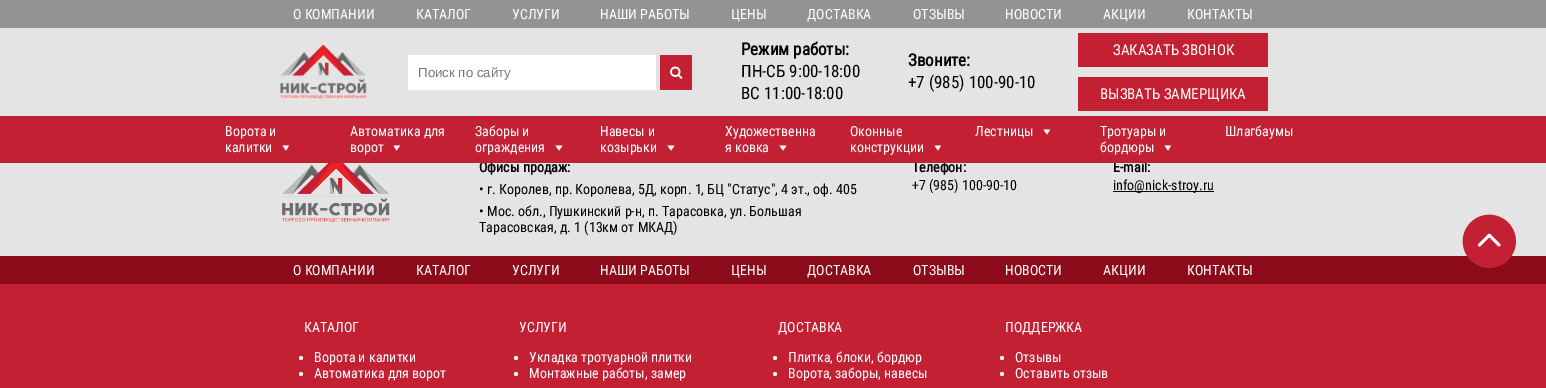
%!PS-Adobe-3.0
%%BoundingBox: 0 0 1546 388
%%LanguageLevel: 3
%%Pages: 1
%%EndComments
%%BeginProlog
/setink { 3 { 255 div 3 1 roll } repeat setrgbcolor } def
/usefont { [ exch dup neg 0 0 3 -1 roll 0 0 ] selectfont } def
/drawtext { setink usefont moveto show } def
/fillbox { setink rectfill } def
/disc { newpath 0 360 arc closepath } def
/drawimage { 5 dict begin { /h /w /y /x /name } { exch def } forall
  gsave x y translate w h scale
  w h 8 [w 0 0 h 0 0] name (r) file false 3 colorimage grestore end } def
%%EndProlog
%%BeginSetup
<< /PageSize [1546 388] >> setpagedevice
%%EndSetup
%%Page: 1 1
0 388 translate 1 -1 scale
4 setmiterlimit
0 0 1546 388 228 228 228 fillbox
0 0 1546 28 147 147 147 fillbox
(О КОМПАНИИ) 293 19 /RobotoCondensed-Regular 14 255 255 255 drawtext
(КАТАЛОГ) 416 19 /RobotoCondensed-Regular 14 255 255 255 drawtext
(УСЛУГИ) 512 19 /RobotoCondensed-Regular 14 255 255 255 drawtext
(НАШИ РАБОТЫ) 600 19 /RobotoCondensed-Regular 14 255 255 255 drawtext
(ЦЕНЫ) 731 19 /RobotoCondensed-Regular 14 255 255 255 drawtext
(ДОСТАВКА) 807 19 /RobotoCondensed-Regular 14 255 255 255 drawtext
(ОТЗЫВЫ) 913 19 /RobotoCondensed-Regular 14 255 255 255 drawtext
(НОВОСТИ) 1005 19 /RobotoCondensed-Regular 14 255 255 255 drawtext
(АКЦИИ) 1103 19 /RobotoCondensed-Regular 14 255 255 255 drawtext
(КОНТАКТЫ) 1187 19 /RobotoCondensed-Regular 14 255 255 255 drawtext
(assets/img1.rgb) 280 44 87 55 drawimage
408 55 248 35 255 255 255 fillbox
(Поиск по сайту) 418 77 /LiberationSans-Regular 13.25 117 117 117 drawtext
660 55 32 35 196 32 52 fillbox
(assets/img2.rgb) 670 66 13 13 drawimage
(Режим работы:) 741 55 /RobotoCondensed-Bold 17 0 0 0 drawtext
(ПН-СБ 9:00-18:00) 741 77 /RobotoCondensed-Regular 17 0 0 0 drawtext
(ВС 11:00-18:00) 741 99 /RobotoCondensed-Regular 17 0 0 0 drawtext
(Звоните:) 908 66 /RobotoCondensed-Bold 17 0 0 0 drawtext
(+7 \(985\) 100-90-10) 908 88 /RobotoCondensed-Regular 17 0 0 0 drawtext
1078 33 190 34 196 32 52 fillbox
(ЗАКАЗАТЬ ЗВОНОК) 1113 55 /RobotoCondensed-Regular 15 255 255 255 drawtext
1078 77 190 34 196 32 52 fillbox
(ВЫЗВАТЬ ЗАМЕРЩИКА) 1100 99 /RobotoCondensed-Regular 15 255 255 255 drawtext
(Офисы продаж:) 479 172 /RobotoCondensed-Bold 14 0 0 0 drawtext
(Телефон:) 912 172 /RobotoCondensed-Bold 14 0 0 0 drawtext
(E-mail:) 1113 172 /RobotoCondensed-Bold 14 0 0 0 drawtext
0 116 1546 47 196 32 52 fillbox
(Ворота и) 225 136 /RobotoCondensed-Regular 14 255 255 255 drawtext
(калитки) 225 152 /RobotoCondensed-Regular 14 255 255 255 drawtext
289 145.5 moveto 286 150.5 lineto 282.5 145.5 lineto closepath fill
(Автоматика для) 350 136 /RobotoCondensed-Regular 14 255 255 255 drawtext
(ворот) 350 152 /RobotoCondensed-Regular 14 255 255 255 drawtext
400 145.5 moveto 396.5 150.5 lineto 393.5 145.5 lineto closepath fill
(Заборы и) 475 136 /RobotoCondensed-Regular 14 255 255 255 drawtext
(ограждения) 475 152 /RobotoCondensed-Regular 14 255 255 255 drawtext
562.5 145.5 moveto 559 150.5 lineto 555.5 145.5 lineto closepath fill
(Навесы и) 600 136 /RobotoCondensed-Regular 14 255 255 255 drawtext
(козырьки) 600 152 /RobotoCondensed-Regular 14 255 255 255 drawtext
674.5 145.5 moveto 671 150.5 lineto 667.5 145.5 lineto closepath fill
(Художественна) 725 136 /RobotoCondensed-Regular 14 255 255 255 drawtext
(я ковка) 725 152 /RobotoCondensed-Regular 14 255 255 255 drawtext
786.5 145.5 moveto 783 150.5 lineto 779.5 145.5 lineto closepath fill
(Оконные) 850 136 /RobotoCondensed-Regular 14 255 255 255 drawtext
(конструкции) 850 152 /RobotoCondensed-Regular 14 255 255 255 drawtext
941 145.5 moveto 938 150.5 lineto 934.5 145.5 lineto closepath fill
(Лестницы) 975 136 /RobotoCondensed-Regular 14 255 255 255 drawtext
1050 129.5 moveto 1047 134.5 lineto 1043.5 129.5 lineto closepath fill
(Тротуары и) 1100 136 /RobotoCondensed-Regular 14 255 255 255 drawtext
(бордюры) 1100 152 /RobotoCondensed-Regular 14 255 255 255 drawtext
1171 145.5 moveto 1168 150.5 lineto 1164.5 145.5 lineto closepath fill
(Шлагбаумы) 1225 136 /RobotoCondensed-Regular 14 255 255 255 drawtext
(assets/img3.rgb) 282 163 108 60 drawimage
(• г. Королев, пр. Королева, 5Д, корп. 1, БЦ "Статус", 4 эт., оф. 405) 479 194 /RobotoCondensed-Regular 14 0 0 0 drawtext
(• Мос. обл., Пушкинский р-н, п. Тарасовка, ул. Большая) 479 216 /RobotoCondensed-Regular 14 0 0 0 drawtext
(Тарасовская, д. 1 \(13км от МКАД\)) 479 232 /RobotoCondensed-Regular 14 0 0 0 drawtext
(+7 \(985\) 100-90-10) 912 190 /RobotoCondensed-Regular 14 0 0 0 drawtext
1113 191 101 1 0 0 0 fillbox
(info@nick-stroy.ru) 1113 190 /RobotoCondensed-Regular 14 0 0 0 drawtext
0 256 1546 28 139 11 27 fillbox
(О КОМПАНИИ) 293 275 /RobotoCondensed-Regular 14 255 255 255 drawtext
(КАТАЛОГ) 416 275 /RobotoCondensed-Regular 14 255 255 255 drawtext
(УСЛУГИ) 512 275 /RobotoCondensed-Regular 14 255 255 255 drawtext
(НАШИ РАБОТЫ) 600 275 /RobotoCondensed-Regular 14 255 255 255 drawtext
(ЦЕНЫ) 731 275 /RobotoCondensed-Regular 14 255 255 255 drawtext
(ДОСТАВКА) 807 275 /RobotoCondensed-Regular 14 255 255 255 drawtext
(ОТЗЫВЫ) 913 275 /RobotoCondensed-Regular 14 255 255 255 drawtext
(НОВОСТИ) 1005 275 /RobotoCondensed-Regular 14 255 255 255 drawtext
(АКЦИИ) 1103 275 /RobotoCondensed-Regular 14 255 255 255 drawtext
(КОНТАКТЫ) 1187 275 /RobotoCondensed-Regular 14 255 255 255 drawtext
0 284 1546 104 196 32 52 fillbox
(КАТАЛОГ) 304 332 /RobotoCondensed-Regular 14 255 255 255 drawtext
301 358 2 disc fill
(Ворота и калитки) 314 362 /RobotoCondensed-Regular 14 255 255 255 drawtext
301 374 2 disc fill
(Автоматика для ворот) 314 378 /RobotoCondensed-Regular 14 255 255 255 drawtext
(УСЛУГИ) 519 332 /RobotoCondensed-Regular 14 255 255 255 drawtext
516 358 2 disc fill
(Укладка тротуарной плитки) 529 362 /RobotoCondensed-Regular 14 255 255 255 drawtext
516 374 2 disc fill
(Монтажные работы, замер) 529 378 /RobotoCondensed-Regular 14 255 255 255 drawtext
(ДОСТАВКА) 778 332 /RobotoCondensed-Regular 14 255 255 255 drawtext
775 358 2 disc fill
(Плитка, блоки, бордюр) 788 362 /RobotoCondensed-Regular 14 255 255 255 drawtext
775 374 2 disc fill
(Ворота, заборы, навесы) 788 378 /RobotoCondensed-Regular 14 255 255 255 drawtext
(ПОДДЕРЖКА) 1005 332 /RobotoCondensed-Regular 14 255 255 255 drawtext
1002 358 2 disc fill
(Отзывы) 1015 362 /RobotoCondensed-Regular 14 255 255 255 drawtext
1002 374 2 disc fill
(Оставить отзыв) 1015 378 /RobotoCondensed-Regular 14 255 255 255 drawtext
(assets/img4.rgb) 1462 214 54 54 drawimage
showpage
%%EOF
